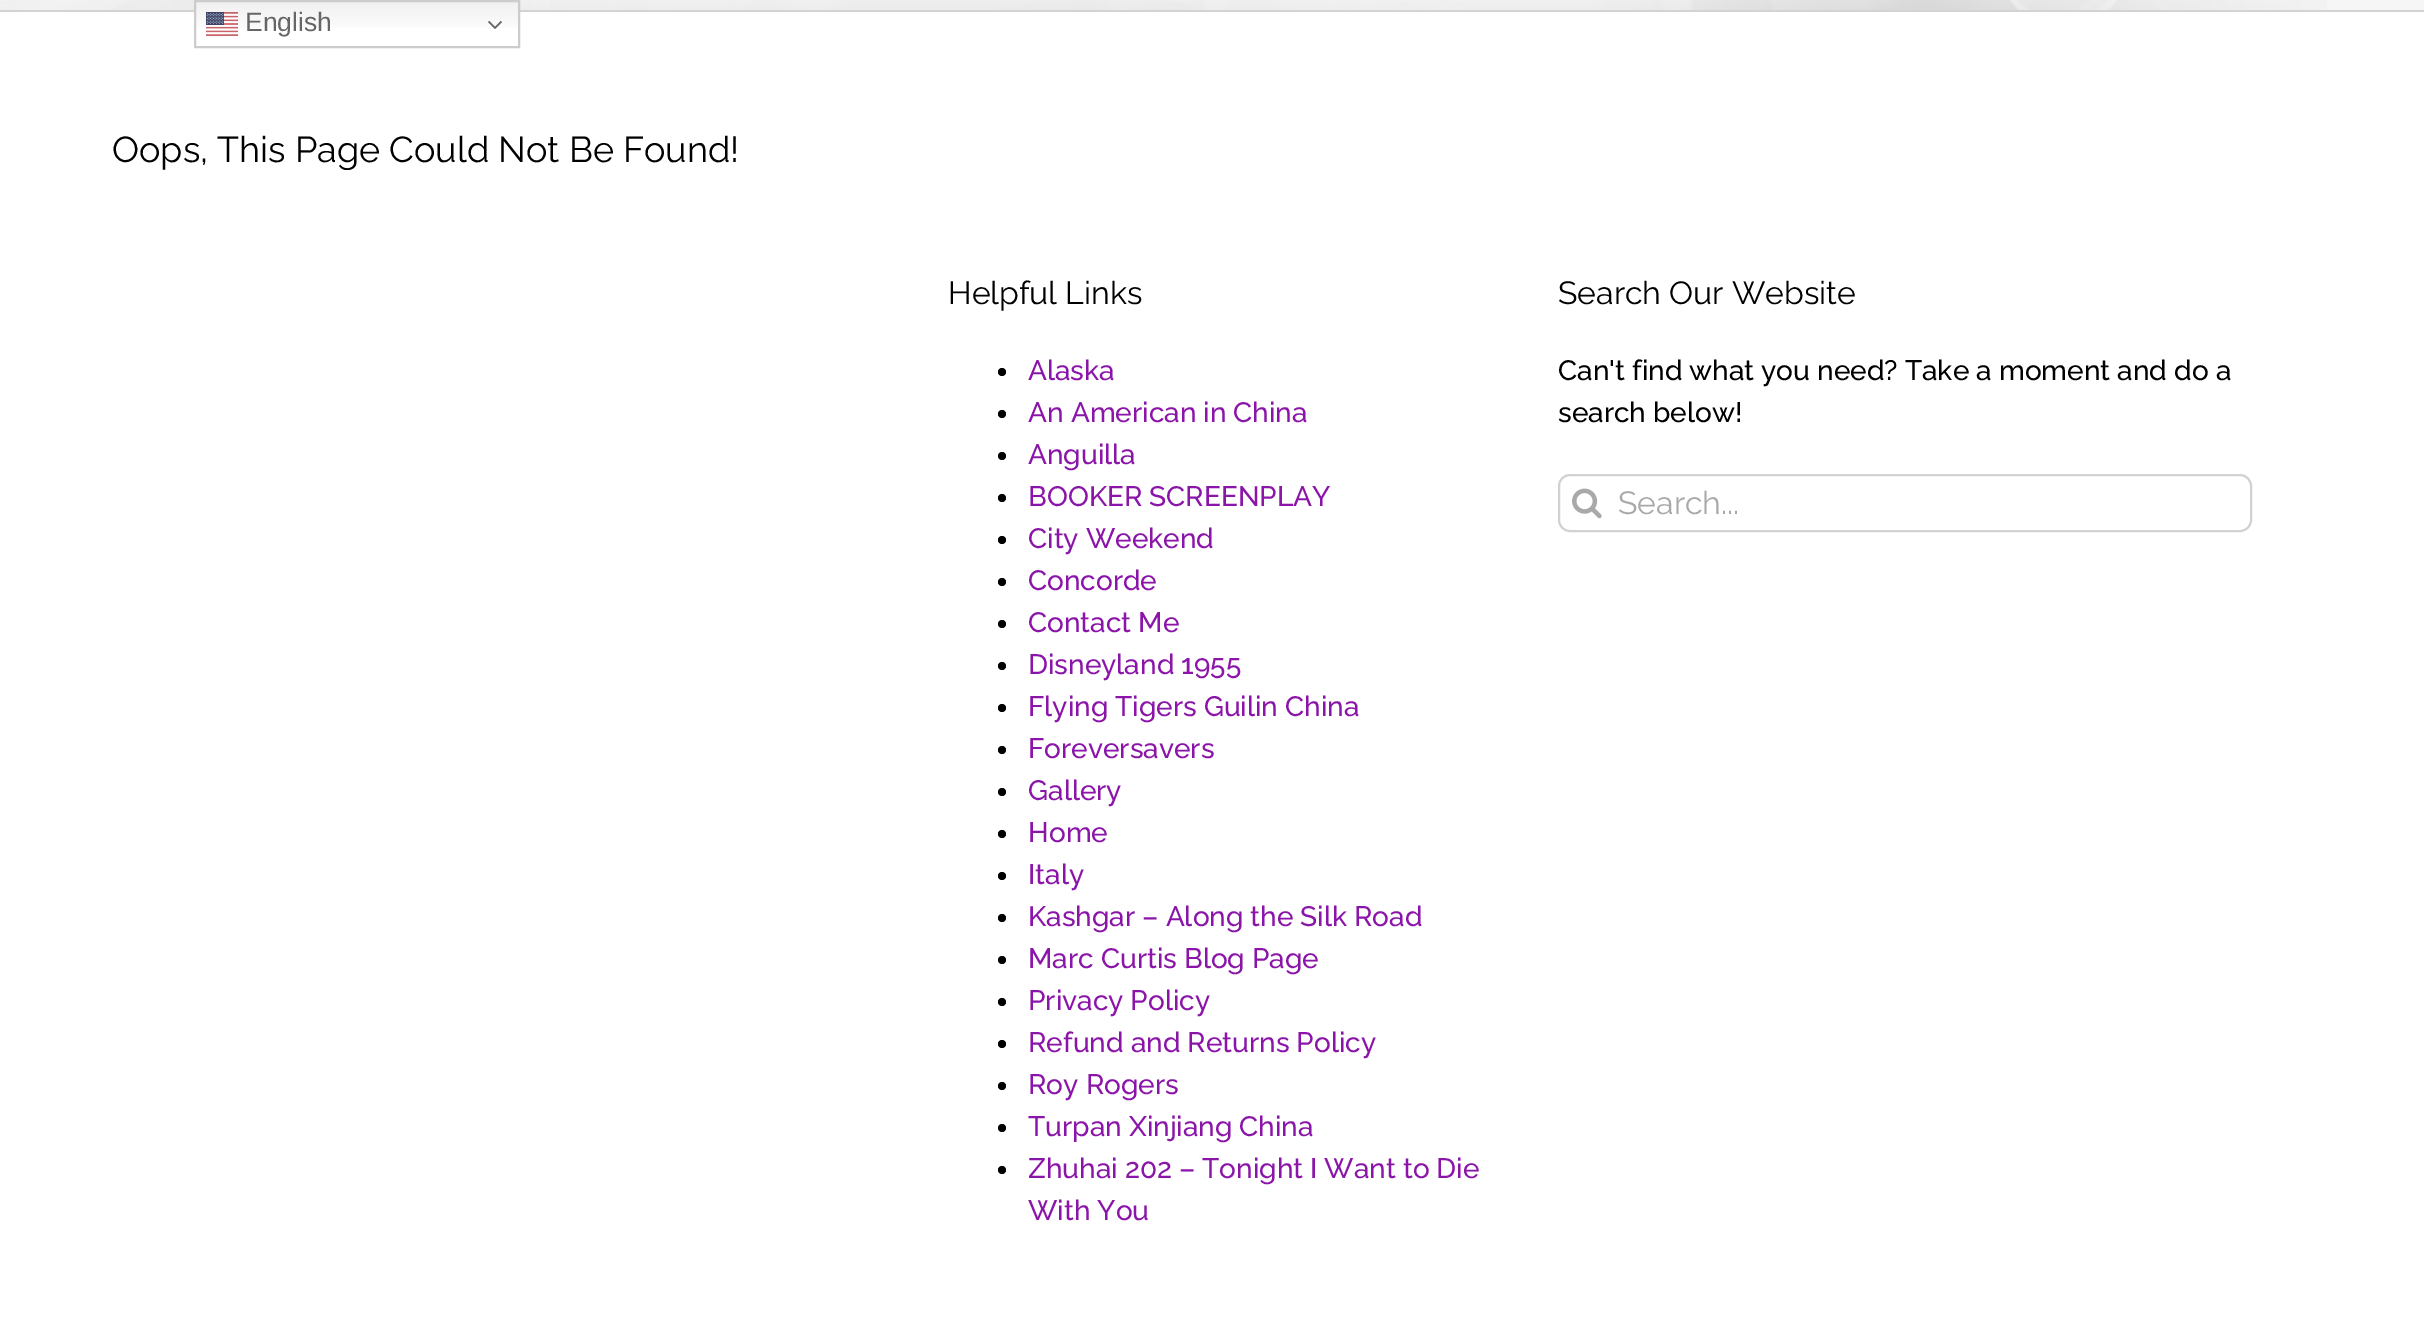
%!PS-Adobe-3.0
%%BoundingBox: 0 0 2424 1321
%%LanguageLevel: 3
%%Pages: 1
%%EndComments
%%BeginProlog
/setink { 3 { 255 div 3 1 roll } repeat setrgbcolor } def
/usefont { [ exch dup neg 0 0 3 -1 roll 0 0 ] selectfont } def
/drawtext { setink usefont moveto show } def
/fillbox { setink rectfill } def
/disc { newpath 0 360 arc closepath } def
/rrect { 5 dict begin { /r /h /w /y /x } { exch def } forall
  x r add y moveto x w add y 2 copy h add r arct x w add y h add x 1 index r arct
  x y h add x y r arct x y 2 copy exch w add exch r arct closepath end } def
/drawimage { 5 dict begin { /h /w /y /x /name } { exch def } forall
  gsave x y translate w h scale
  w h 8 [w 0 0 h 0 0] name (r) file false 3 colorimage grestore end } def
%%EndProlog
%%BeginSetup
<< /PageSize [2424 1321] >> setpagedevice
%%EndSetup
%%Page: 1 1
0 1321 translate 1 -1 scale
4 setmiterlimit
0 0 2424 1321 255 255 255 fillbox
0 0 2424 10 246 246 246 fillbox
(assets/img3.rgb) 0 0 2327 10 drawimage
0 10 2424 2 210 211 212 fillbox
gsave 196 2 moveto 518 2 lineto 518 28 lineto 196 28 lineto closepath clip newpath
<< /ShadingType 2 /ColorSpace /DeviceRGB /Coords [357 0 357 48] /Extend [true true] /Function << /FunctionType 3 /Domain [0 1] /Functions [<< /FunctionType 2 /Domain [0 1] /C0 [0.937 0.937 0.937] /C1 [1 1 1] /N 1 >> << /FunctionType 2 /Domain [0 1] /C0 [1 1 1] /C1 [1 1 1] /N 1 >>] /Bounds [0.7] /Encode [0 1 0 1] >> >> shfill grestore
204 204 204 setink
2 setlinewidth
195 1 324 46 rectstroke
(assets/img1.rgb) 206 12 32 24 drawimage
(English) 245 31 /LiberationSans-Regular 26.5 102 102 102 drawtext
(assets/img2.rgb) 488 21 14 8 drawimage
(Oops, This Page Could Not Be Found!) 112 162 /Raleway-Regular 36 0 0 0 drawtext
(Helpful Links) 948 304 /Raleway-Regular 32 0 0 0 drawtext
1002 372 4 disc fill
(Alaska) 1028 380 /Raleway-Medium 28 139 21 168 drawtext
0 0 0 setink
1002 414 4 disc fill
(An American in China) 1028 422 /Raleway-Medium 28 139 21 168 drawtext
0 0 0 setink
1002 456 4 disc fill
(Anguilla) 1028 464 /Raleway-Medium 28 139 21 168 drawtext
0 0 0 setink
1002 498 4 disc fill
(BOOKER SCREENPLAY) 1028 506 /Raleway-Medium 28 139 21 168 drawtext
0 0 0 setink
1002 540 4 disc fill
(City Weekend) 1028 548 /Raleway-Medium 28 139 21 168 drawtext
0 0 0 setink
1002 582 4 disc fill
(Concorde) 1028 590 /Raleway-Medium 28 139 21 168 drawtext
0 0 0 setink
1002 624 4 disc fill
(Contact Me) 1028 632 /Raleway-Medium 28 139 21 168 drawtext
0 0 0 setink
1002 666 4 disc fill
(Disneyland 1955) 1028 674 /Raleway-Medium 28 139 21 168 drawtext
0 0 0 setink
1002 708 4 disc fill
(Flying Tigers Guilin China) 1028 716 /Raleway-Medium 28 139 21 168 drawtext
0 0 0 setink
1002 750 4 disc fill
(Foreversavers) 1028 758 /Raleway-Medium 28 139 21 168 drawtext
0 0 0 setink
1002 792 4 disc fill
(Gallery) 1028 800 /Raleway-Medium 28 139 21 168 drawtext
0 0 0 setink
1002 834 4 disc fill
(Home) 1028 842 /Raleway-Medium 28 139 21 168 drawtext
0 0 0 setink
1002 876 4 disc fill
(Italy) 1028 884 /Raleway-Medium 28 139 21 168 drawtext
0 0 0 setink
1002 918 4 disc fill
(Kashgar – Along the Silk Road) 1028 926 /Raleway-Medium 28 139 21 168 drawtext
0 0 0 setink
1002 960 4 disc fill
(Marc Curtis Blog Page) 1028 968 /Raleway-Medium 28 139 21 168 drawtext
0 0 0 setink
1002 1002 4 disc fill
(Privacy Policy) 1028 1010 /Raleway-Medium 28 139 21 168 drawtext
0 0 0 setink
1002 1044 4 disc fill
(Refund and Returns Policy) 1028 1052 /Raleway-Medium 28 139 21 168 drawtext
0 0 0 setink
1002 1086 4 disc fill
(Roy Rogers) 1028 1094 /Raleway-Medium 28 139 21 168 drawtext
0 0 0 setink
1002 1128 4 disc fill
(Turpan Xinjiang China) 1028 1136 /Raleway-Medium 28 139 21 168 drawtext
0 0 0 setink
1002 1170 4 disc fill
(Zhuhai 202 – Tonight I Want to Die) 1028 1178 /Raleway-Medium 28 139 21 168 drawtext
(With You) 1028 1220 /Raleway-Medium 28 139 21 168 drawtext
(Search Our Website) 1558 304 /Raleway-Regular 32 0 0 0 drawtext
(Can't find what you need? Take a moment and do a) 1558 380 /Raleway-Medium 28 0 0 0 drawtext
(search below!) 1558 422 /Raleway-Medium 28 0 0 0 drawtext
210 210 210 setink
1559 475 692 56 11 rrect stroke
(assets/img4.rgb) 1572 488 30 31 drawimage
(Search...) 1618 514 /Raleway-Regular 32 170 169 169 drawtext
showpage
%%EOF
